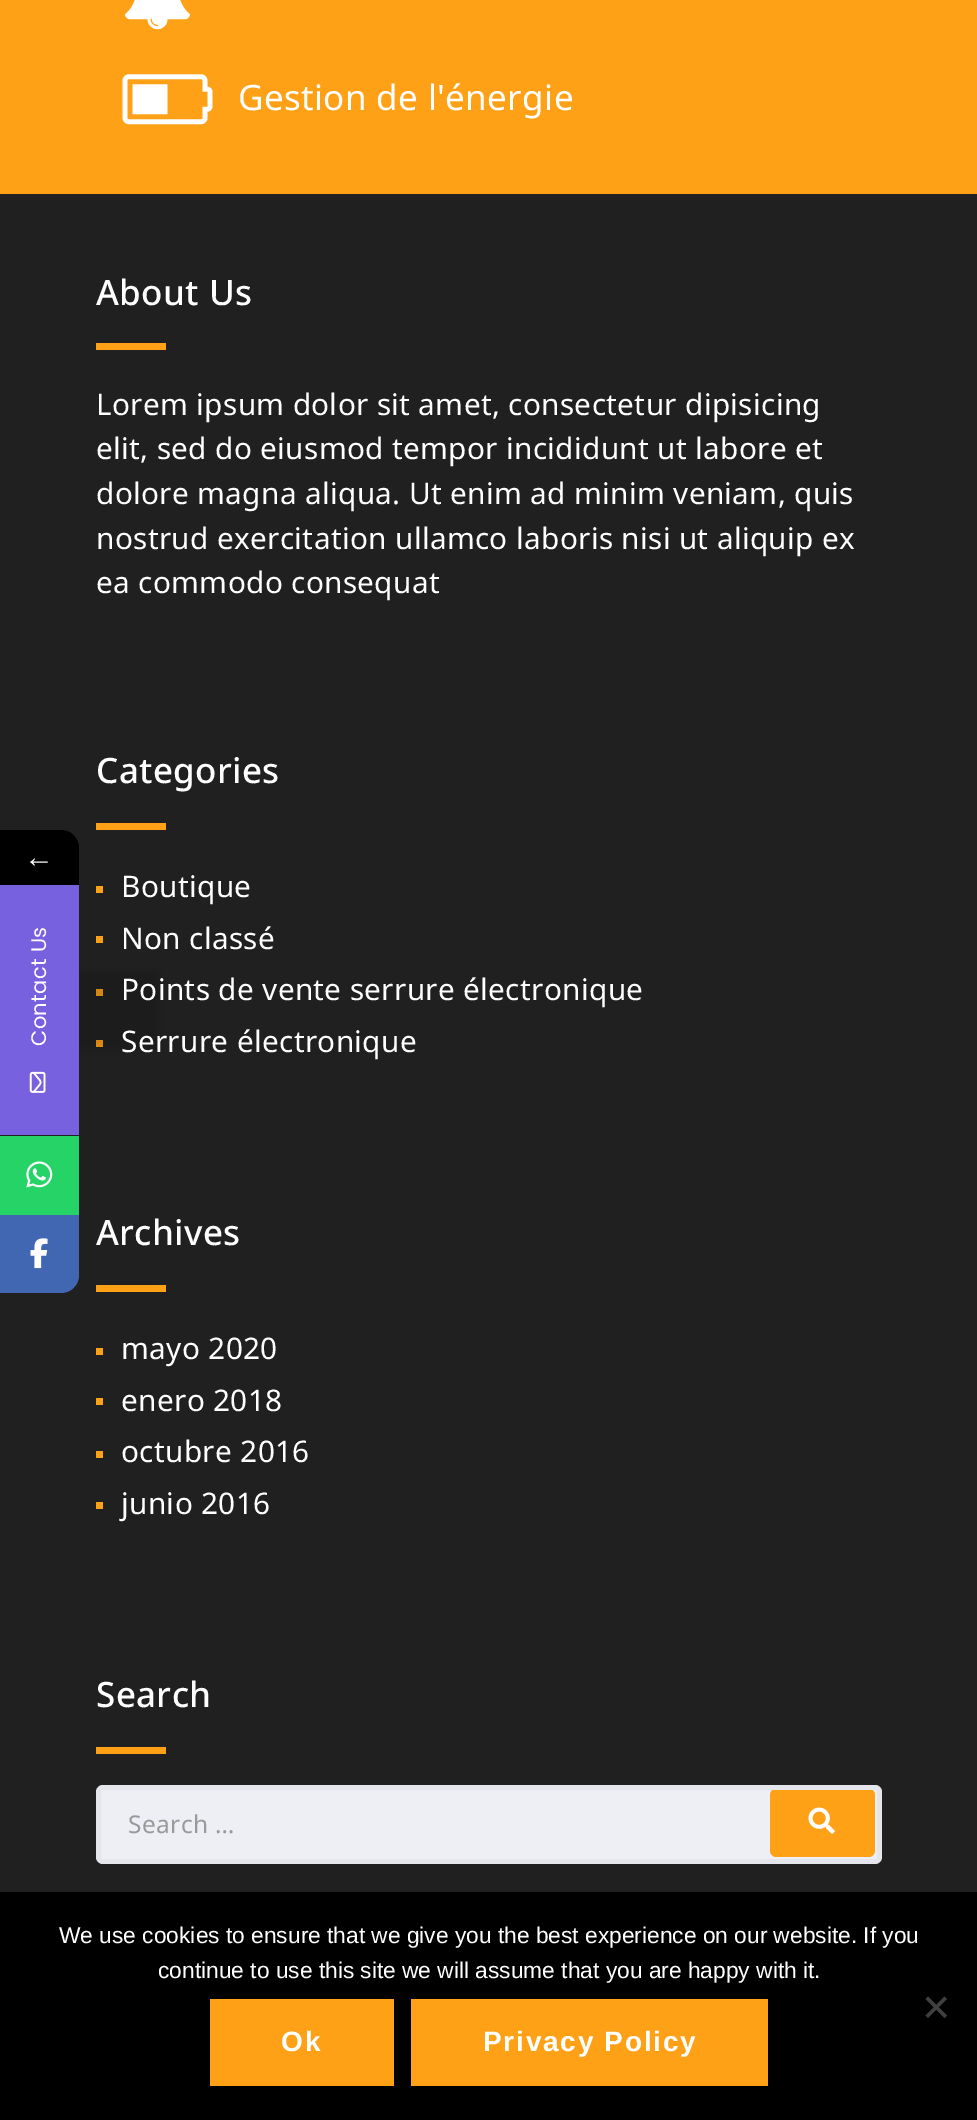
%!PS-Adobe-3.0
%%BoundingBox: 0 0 977 2120
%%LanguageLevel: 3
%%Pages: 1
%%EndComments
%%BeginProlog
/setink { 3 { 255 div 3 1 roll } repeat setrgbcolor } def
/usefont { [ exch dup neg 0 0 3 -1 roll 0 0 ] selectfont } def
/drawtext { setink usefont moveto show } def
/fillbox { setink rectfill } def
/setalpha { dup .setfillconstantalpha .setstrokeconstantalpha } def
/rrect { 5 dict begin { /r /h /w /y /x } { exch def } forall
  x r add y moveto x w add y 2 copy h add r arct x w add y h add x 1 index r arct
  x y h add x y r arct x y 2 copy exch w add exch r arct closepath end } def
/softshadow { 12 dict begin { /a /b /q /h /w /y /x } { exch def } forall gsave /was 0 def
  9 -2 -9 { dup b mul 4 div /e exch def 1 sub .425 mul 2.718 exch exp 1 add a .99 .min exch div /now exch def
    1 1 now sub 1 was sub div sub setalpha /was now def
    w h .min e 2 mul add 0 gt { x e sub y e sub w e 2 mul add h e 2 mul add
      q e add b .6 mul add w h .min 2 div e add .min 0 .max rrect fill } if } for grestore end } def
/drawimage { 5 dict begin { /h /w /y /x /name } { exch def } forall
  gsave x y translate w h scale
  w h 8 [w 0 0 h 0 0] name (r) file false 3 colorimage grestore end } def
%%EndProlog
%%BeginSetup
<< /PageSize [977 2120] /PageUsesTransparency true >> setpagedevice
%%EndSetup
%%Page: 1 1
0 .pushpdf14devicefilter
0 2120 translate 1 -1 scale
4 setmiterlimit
0 0 977 2120 254 161 22 fillbox
(assets/img1.rgb) 125 0 65 30 drawimage
(assets/img2.rgb) 122 74 91 51 drawimage
/NotoSans-Regular 35 usefont
255 255 255 setink
238 110 moveto 0.35 0 (Gestion de l'énergie) ashow
0 194 977 1698 32 32 33 fillbox
0 0 0 setink
0 830 moveto 61 830 lineto 71 830 79 838 79 848 curveto 79 886 lineto 0 886 lineto closepath fill
/LiberationSerif-Regular 29.75 usefont
255 255 255 setink
24 867 moveto 0.35 0 (←) ashow
96 989 7 7 254 161 22 fillbox
96 1040 7 7 254 161 22 fillbox
0 0 0 setink
-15 971 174 79 0 5 0.16 softshadow
0 885 79 250 119 97 223 fillbox
/Poppins-Regular 21 usefont
255 255 255 setink
gsave 46 1046 translate -90 rotate 0 0 moveto 0.35 0 (Contact Us) ashow grestore
(assets/img3.rgb) 29 1071 17 22 drawimage
0 1136 79 79 38 211 103 fillbox
(assets/img4.rgb) 26 1161 27 27 drawimage
66 103 178 setink
0 1215 moveto 79 1215 lineto 79 1275 lineto 79 1285 71 1293 61 1293 curveto 0 1293 lineto closepath fill
(assets/img5.rgb) 30 1238 18 31 drawimage
/NotoSans-Medium 35 usefont
255 255 255 setink
96 305 moveto 0.35 0 (About Us) ashow
96 343 70 7 254 161 22 fillbox
/NotoSans-Regular 29.75 usefont
255 255 255 setink
96 415 moveto 0.35 0 (Lorem ipsum dolor sit amet, consectetur dipisicing) ashow
96 459 moveto 0.35 0 (elit, sed do eiusmod tempor incididunt ut labore et) ashow
96 504 moveto 0.35 0 (dolore magna aliqua. Ut enim ad minim veniam, quis) ashow
96 549 moveto 0.35 0 (nostrud exercitation ullamco laboris nisi ut aliquip ex) ashow
96 593 moveto 0.35 0 (ea commodo consequat) ashow
/NotoSans-Medium 35 usefont
96 783 moveto 0.35 0 (Categories) ashow
96 823 70 7 254 161 22 fillbox
96 886 7 7 254 161 22 fillbox
/NotoSans-Regular 29.75 usefont
255 255 255 setink
121 897 moveto 0.35 0 (Boutique) ashow
96 936 7 7 254 161 22 fillbox
255 255 255 setink
121 949 moveto 0.35 0 (Non classé) ashow
121 1000 moveto 0.35 0 (Points de vente serrure électronique) ashow
121 1052 moveto 0.35 0 (Serrure électronique) ashow
/NotoSans-Medium 35 usefont
96 1245 moveto 0.35 0 (Archives) ashow
96 1285 70 7 254 161 22 fillbox
96 1348 7 7 254 161 22 fillbox
/NotoSans-Regular 29.75 usefont
255 255 255 setink
121 1359 moveto 0.35 0 (mayo 2020) ashow
96 1398 7 7 254 161 22 fillbox
255 255 255 setink
121 1411 moveto 0.35 0 (enero 2018) ashow
96 1451 7 7 254 161 22 fillbox
255 255 255 setink
121 1462 moveto 0.35 0 (octubre 2016) ashow
96 1502 7 7 254 161 22 fillbox
255 255 255 setink
121 1514 moveto 0.35 0 (junio 2016) ashow
/NotoSans-Medium 35 usefont
96 1707 moveto 0.35 0 (Search) ashow
96 1747 70 7 254 161 22 fillbox
238 239 245 setink
96 1785 786 79 7 rrect fill
0.04 setalpha
0 0 0 setink
5 setlinewidth
98.5 1787.5 781 74 rectstroke
/NotoSans-Regular 24.5 usefont
1 setalpha
153 153 153 setink
128 1833 moveto 0.35 0 (Search …) ashow
gsave
102 1790 775 69 2 rrect clip newpath
254 161 22 setink
770 1789 105 68 7 rrect fill
grestore
254 161 22 setink
872 1790 moveto 874 1791 875 1793 875 1796 curveto 875 1850 lineto 875 1854 872 1857 868 1857 curveto 777 1857 lineto 773 1857 770 1854 770 1850 curveto 770 1796 lineto 770 1793 771 1791 773 1790 curveto closepath 777 1791 moveto 774 1791 772 1793 772 1796 curveto 772 1850 lineto 772 1853 774 1855 777 1855 curveto 868 1855 lineto 871 1855 873 1853 873 1850 curveto 873 1796 lineto 873 1793 871 1791 868 1791 curveto closepath eofill
(assets/img6.rgb) 808 1807 27 27 drawimage
0 1892 977 228 0 0 0 fillbox
(We use cookies to ensure that we give you the best experience on our website. If you) 59 1943 /LiberationSans-Regular 22.75 255 255 255 drawtext
(continue to use this site we will assume that you are happy with it.) 158 1978 /LiberationSans-Regular 22.75 255 255 255 drawtext
64 64 64 setink
944.5 1996.5 moveto 947 1999 lineto 928 2018 lineto 925.5 2015.5 lineto closepath fill
925.5 1999 moveto 928 1996.5 lineto 947 2015.5 lineto 944.5 2018 lineto closepath fill
210 1999 184 87 254 161 22 fillbox
/LiberationSans-Bold 28 usefont
255 255 255 setink
281 2051 moveto 1.75 0 (Ok) ashow
411 1999 357 87 254 161 22 fillbox
255 255 255 setink
483 2051 moveto 1.75 0 (Privacy Policy) ashow
.poppdf14devicefilter showpage
%%EOF
